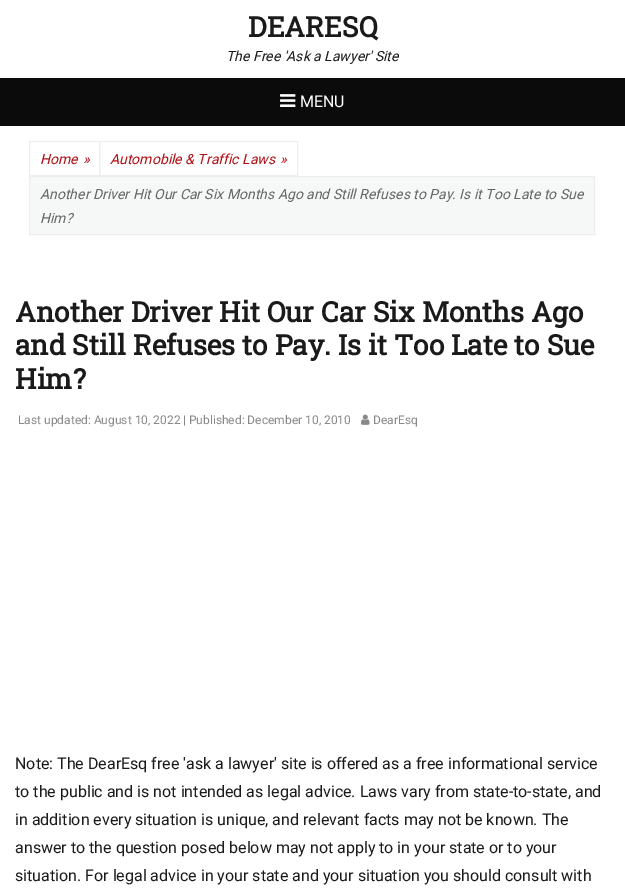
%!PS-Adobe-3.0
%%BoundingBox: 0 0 625 893
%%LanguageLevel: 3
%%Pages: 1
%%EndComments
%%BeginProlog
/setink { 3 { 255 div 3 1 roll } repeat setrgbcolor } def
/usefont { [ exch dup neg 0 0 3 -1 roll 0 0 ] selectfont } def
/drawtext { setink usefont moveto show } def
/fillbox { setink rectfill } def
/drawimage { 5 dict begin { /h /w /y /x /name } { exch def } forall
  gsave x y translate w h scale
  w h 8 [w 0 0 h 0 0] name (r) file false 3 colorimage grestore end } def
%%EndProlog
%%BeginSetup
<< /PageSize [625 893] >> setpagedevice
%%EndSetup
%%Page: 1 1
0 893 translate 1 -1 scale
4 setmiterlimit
0 0 625 893 255 255 255 fillbox
(DEARESQ) 248 37 /RobotoSlab-Bold 28 26 26 26 drawtext
(The Free 'Ask a Lawyer' Site) 226 61 /Roboto-Italic 14 26 26 26 drawtext
0 78 625 48 11 11 11 fillbox
(assets/img1.rgb) 280 94 16 13 drawimage
(MENU) 300 107 /Roboto-Regular 16 255 255 255 drawtext
238 238 238 setink
29.5 141.5 70 34 rectstroke
(Home) 40 164 /Roboto-Italic 14 176 15 20 drawtext
(») 83 164 /Roboto-Italic 14 176 15 20 drawtext
238 238 238 setink
99.5 141.5 198 34 rectstroke
(Automobile & Traffic Laws) 110 164 /Roboto-Italic 14 176 15 20 drawtext
(») 280 164 /Roboto-Italic 14 176 15 20 drawtext
246 247 247 setink
29.5 176.5 moveto 594.5 176.5 lineto 594.5 234.5 lineto 29.5 234.5 lineto closepath gsave fill grestore
238 238 238 setink
stroke
(Another Driver Hit Our Car Six Months Ago and Still Refuses to Pay. Is it Too Late to Sue) 40 199 /Roboto-Italic 14 102 102 102 drawtext
(Him?) 40 223 /Roboto-Italic 14 102 102 102 drawtext
(Another Driver Hit Our Car Six Months Ago) 15 322 /RobotoSlab-Bold 28 26 26 26 drawtext
(and Still Refuses to Pay. Is it Too Late to Sue) 15 355 /RobotoSlab-Bold 28 26 26 26 drawtext
(Him?) 15 389 /RobotoSlab-Bold 28 26 26 26 drawtext
(Last updated: August 10, 2022) 18 424 /Roboto-Regular 12 136 136 136 drawtext
(| Published: December 10, 2010) 183 424 /Roboto-Regular 12 136 136 136 drawtext
(assets/img2.rgb) 361 414 9 11 drawimage
(DearEsq) 373 424 /Roboto-Regular 12 136 136 136 drawtext
(Note: The DearEsq free 'ask a lawyer' site is offered as a free informational service) 15 769 /Roboto-Regular 16 26 26 26 drawtext
(to the public and is not intended as legal advice. Laws vary from state-to-state, and) 15 797 /Roboto-Regular 16 26 26 26 drawtext
(in addition every situation is unique, and relevant facts may not be known. The) 15 825 /Roboto-Regular 16 26 26 26 drawtext
(answer to the question posed below may not apply to in your state or to your) 15 853 /Roboto-Regular 16 26 26 26 drawtext
(situation. For legal advice in your state and your situation you should consult with) 15 881 /Roboto-Regular 16 26 26 26 drawtext
showpage
%%EOF
